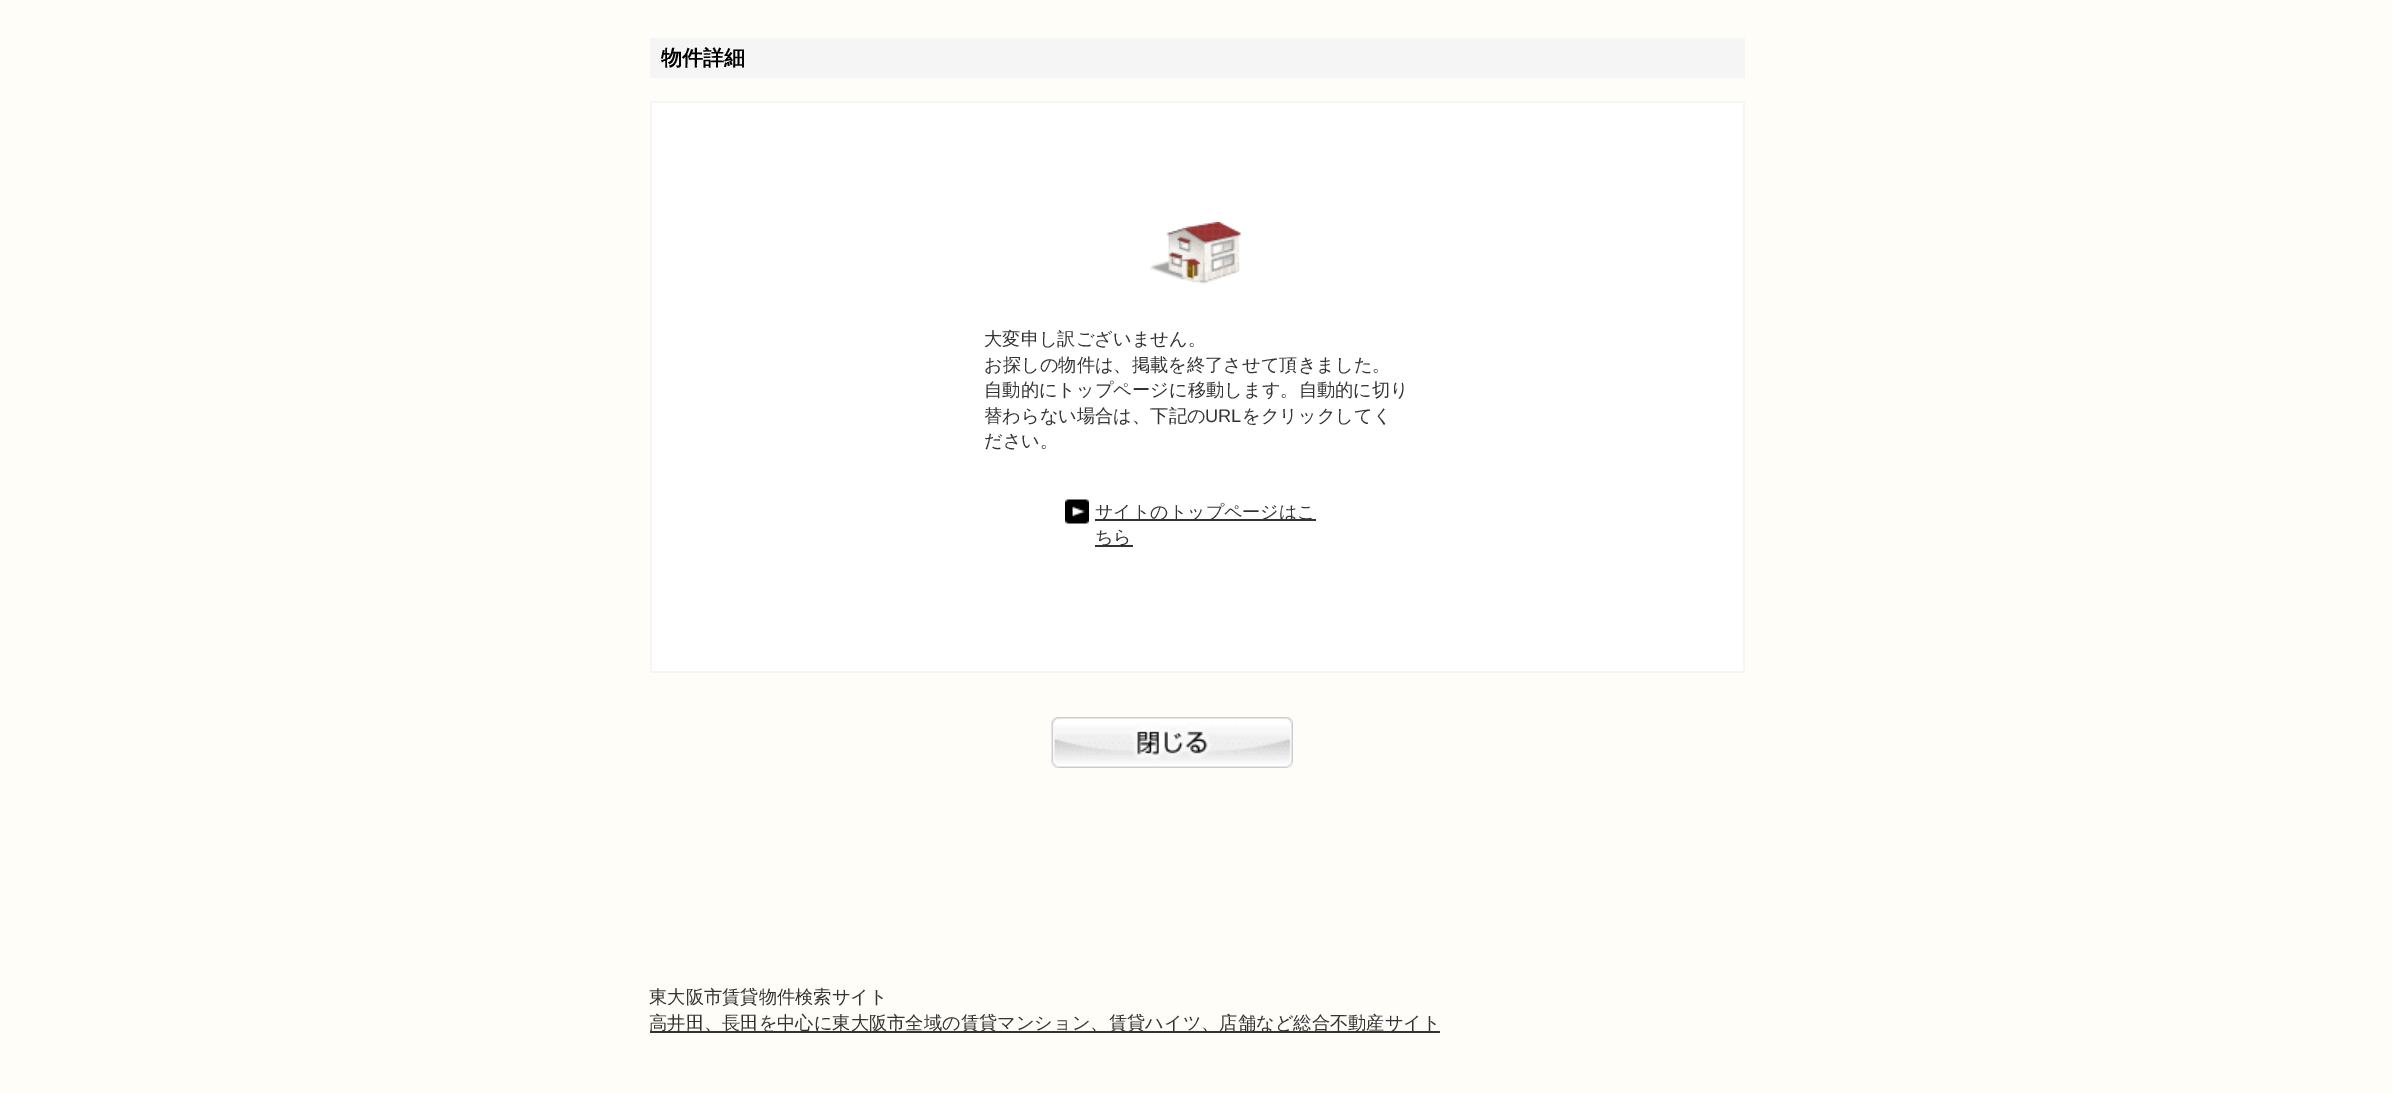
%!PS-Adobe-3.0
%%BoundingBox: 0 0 2392 1093
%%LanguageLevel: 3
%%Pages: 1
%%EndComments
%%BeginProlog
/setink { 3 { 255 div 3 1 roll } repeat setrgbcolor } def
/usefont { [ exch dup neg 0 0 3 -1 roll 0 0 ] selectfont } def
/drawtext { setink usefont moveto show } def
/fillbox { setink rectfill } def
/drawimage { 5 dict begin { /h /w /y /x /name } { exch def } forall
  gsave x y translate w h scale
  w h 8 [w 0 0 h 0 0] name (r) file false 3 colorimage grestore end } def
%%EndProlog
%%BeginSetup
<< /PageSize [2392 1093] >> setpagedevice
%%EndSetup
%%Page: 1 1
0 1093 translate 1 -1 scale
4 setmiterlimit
0 0 2392 1093 255 253 248 fillbox
650 38 1095 40 245 245 245 fillbox
(物件詳細) 661 65 /WenQuanYiZenHei-Bold 21 0 0 0 drawtext
652 103 1091 568 255 255 255 fillbox
650 101 1095 2 245 245 245 fillbox
1743 101 2 571 245 245 245 fillbox
650 671 1095 2 245 245 245 fillbox
650 101 2 571 245 245 245 fillbox
(assets/img1.rgb) 1149 222 92 62 drawimage
(大変申し訳ございません。) 984 345 /WenQuanYiZenHei-Medium 18.25 51 51 51 drawtext
(お探しの物件は、掲載を終了させて頂きました。) 984 371 /WenQuanYiZenHei-Medium 18.25 51 51 51 drawtext
(自動的にトップページに移動します。自動的に切り) 984 396 /WenQuanYiZenHei-Medium 18.25 51 51 51 drawtext
(替わらない場合は、下記の) 984 422 /WenQuanYiZenHei-Medium 18.25 51 51 51 drawtext
(URL) 1205 422 /LiberationSans-Regular 18.25 51 51 51 drawtext
(をクリックしてく) 1242 422 /WenQuanYiZenHei-Medium 18.25 51 51 51 drawtext
(ださい。) 984 447 /WenQuanYiZenHei-Medium 18.25 51 51 51 drawtext
(assets/img2.rgb) 1065 499 24 25 drawimage
1095 519 221 2 51 51 51 fillbox
(サイトのトップページはこ) 1095 518 /WenQuanYiZenHei-Medium 18 51 51 51 drawtext
1095 545 38 2 51 51 51 fillbox
(ちら) 1095 543 /WenQuanYiZenHei-Medium 18 51 51 51 drawtext
(assets/img3.rgb) 1051 717 242 51 drawimage
(東大阪市賃貸物件検索サイト) 649 1003 /WenQuanYiZenHei-Medium 18.25 51 51 51 drawtext
650 1031 790 2 51 51 51 fillbox
(高井田、長田を中心に東大阪市全域の賃貸マンション、賃貸ハイツ、店舗など総合不動産サイト) 649 1029 /WenQuanYiZenHei-Medium 18.25 51 51 51 drawtext
showpage
%%EOF
